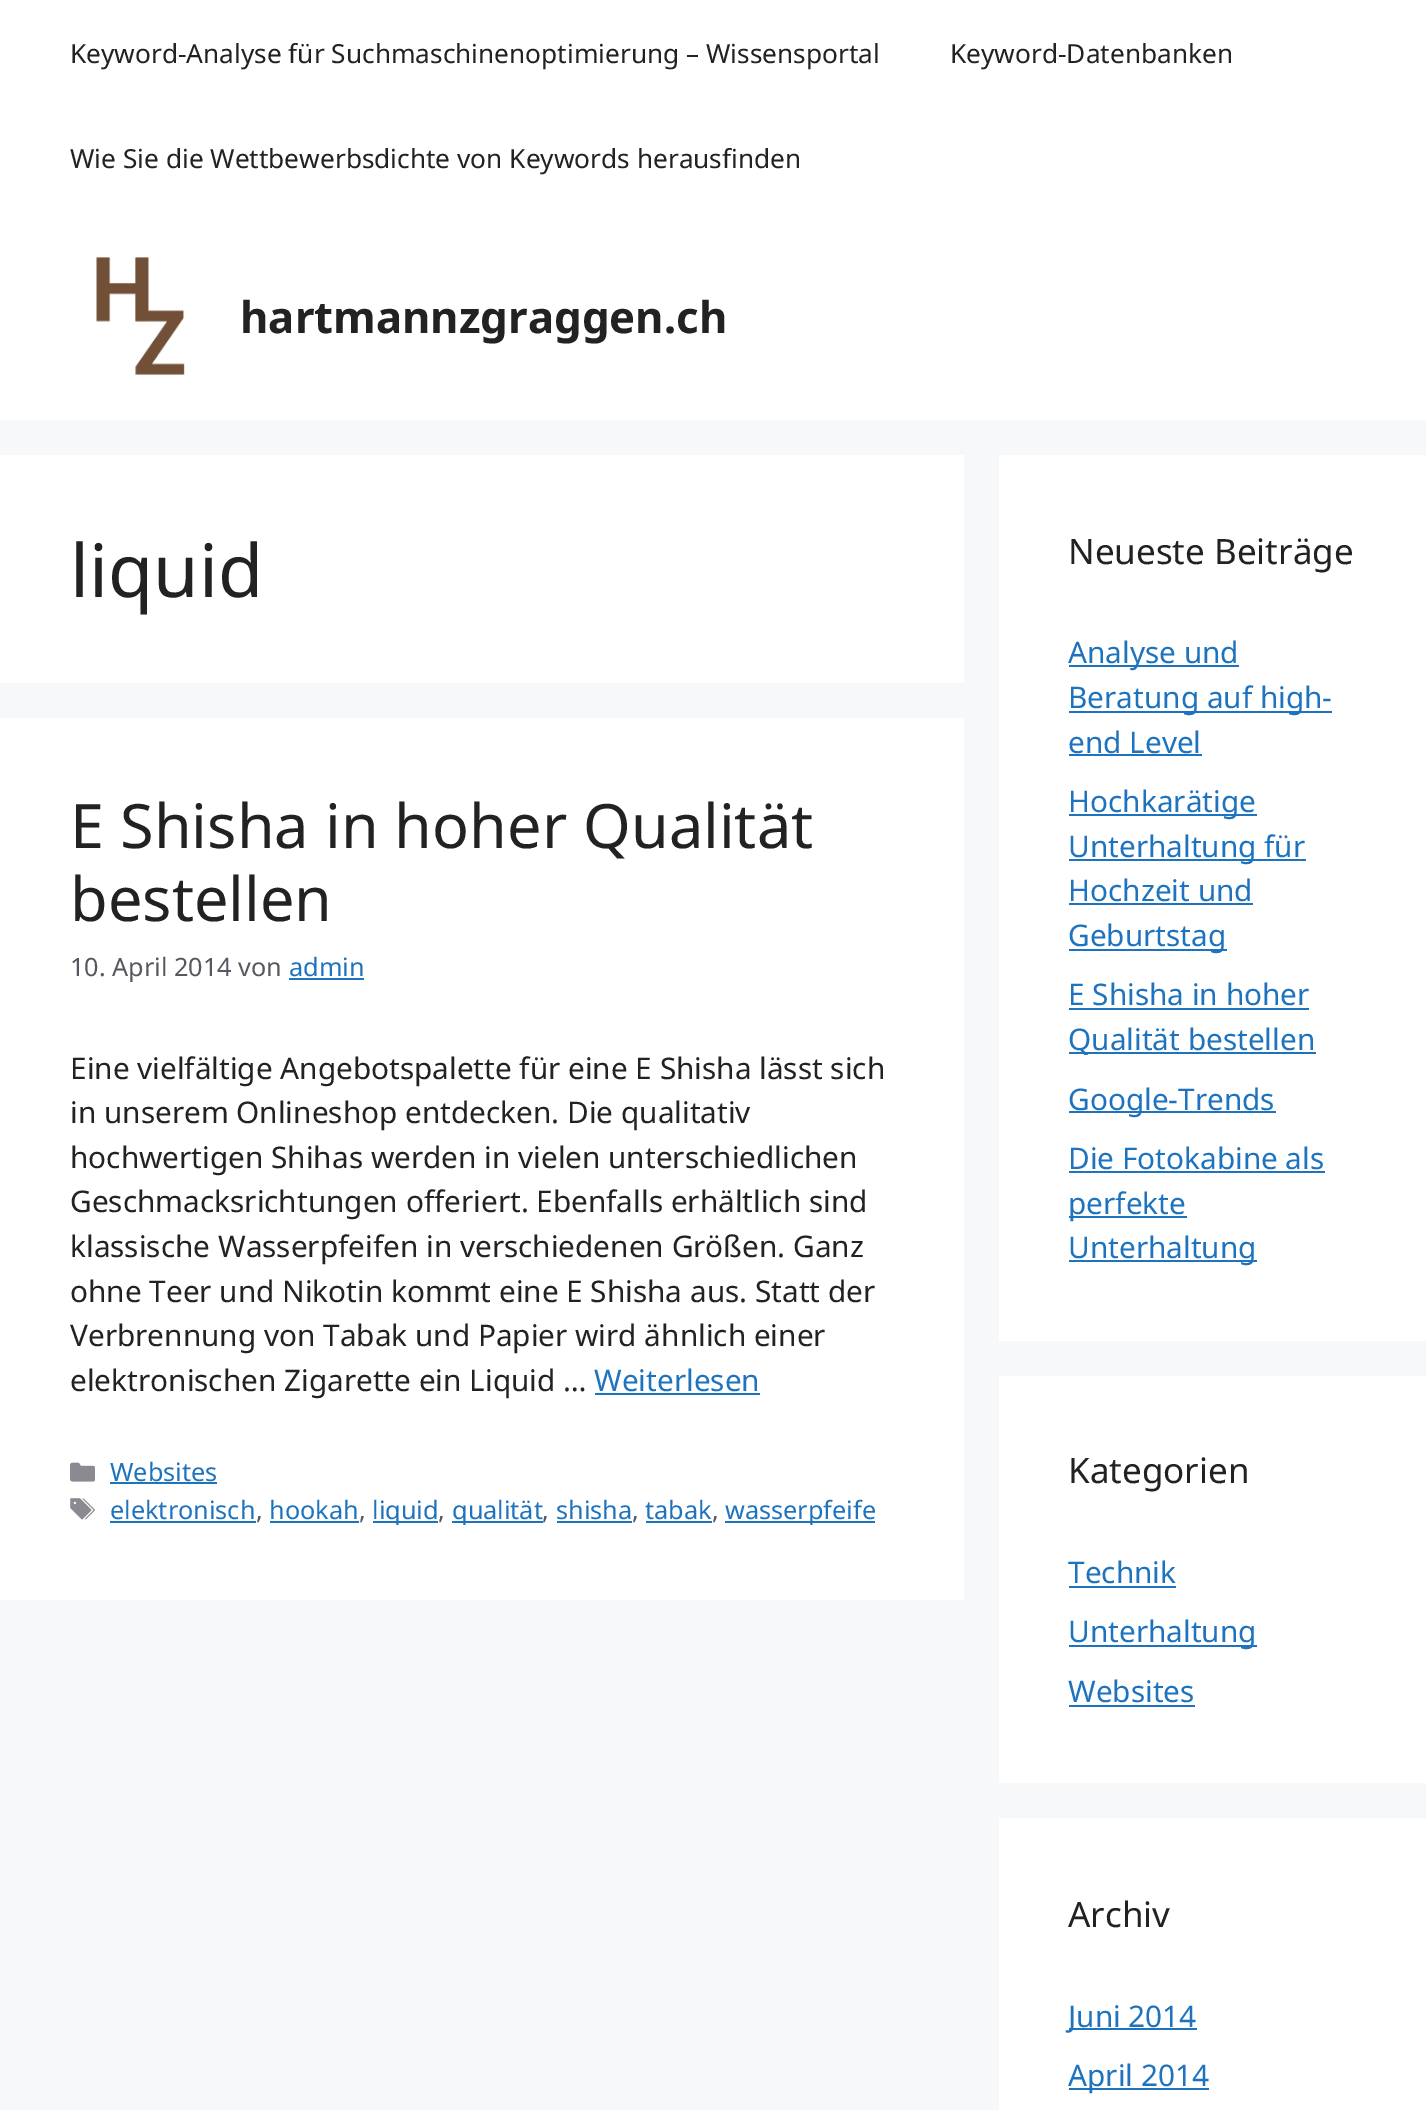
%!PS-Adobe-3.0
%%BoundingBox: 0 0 1426 2110
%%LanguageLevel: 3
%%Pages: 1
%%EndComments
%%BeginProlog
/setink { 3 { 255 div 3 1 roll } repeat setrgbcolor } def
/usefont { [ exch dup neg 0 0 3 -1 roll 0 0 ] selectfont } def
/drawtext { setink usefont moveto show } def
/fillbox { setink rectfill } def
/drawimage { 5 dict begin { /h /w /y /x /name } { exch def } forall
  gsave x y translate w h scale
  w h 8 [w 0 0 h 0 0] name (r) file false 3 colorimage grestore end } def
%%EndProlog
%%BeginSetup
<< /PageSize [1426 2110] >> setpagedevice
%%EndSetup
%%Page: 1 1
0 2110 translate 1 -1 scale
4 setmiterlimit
0 0 1426 2110 247 248 249 fillbox
0 0 1426 420 255 255 255 fillbox
(Keyword-Analyse für Suchmaschinenoptimierung – Wissensportal) 70 63 /NotoSans-Regular 26.25 34 34 34 drawtext
(Keyword-Datenbanken) 950 63 /NotoSans-Regular 26.25 34 34 34 drawtext
(Wie Sie die Wettbewerbsdichte von Keywords herausfinden) 70 168 /NotoSans-Regular 26.25 34 34 34 drawtext
(assets/img1.rgb) 96 257 89 118 drawimage
(hartmannzgraggen.ch) 240 333 /NotoSans-Bold 43.75 34 34 34 drawtext
0 455 964 228 255 255 255 fillbox
(liquid) 70 597 /NotoSans-Regular 73.5 34 34 34 drawtext
0 718 964 882 255 255 255 fillbox
(E Shisha in hoher Qualität) 70 848 /NotoSans-Regular 61.25 34 34 34 drawtext
(bestellen) 70 921 /NotoSans-Regular 61.25 34 34 34 drawtext
(10. April 2014 von) 70 976 /NotoSans-Regular 25.25 87 87 96 drawtext
(admin) 289 976 /NotoSans-Regular 25.25 30 115 190 drawtext
289 978 75 2 30 115 190 fillbox
(Eine vielfältige Angebotspalette für eine E Shisha lässt sich) 70 1079 /NotoSans-Regular 29.75 34 34 34 drawtext
(in unserem Onlineshop entdecken. Die qualitativ) 70 1123 /NotoSans-Regular 29.75 34 34 34 drawtext
(hochwertigen Shihas werden in vielen unterschiedlichen) 70 1168 /NotoSans-Regular 29.75 34 34 34 drawtext
(Geschmacksrichtungen offeriert. Ebenfalls erhältlich sind) 70 1212 /NotoSans-Regular 29.75 34 34 34 drawtext
(klassische Wasserpfeifen in verschiedenen Größen. Ganz) 70 1257 /NotoSans-Regular 29.75 34 34 34 drawtext
(ohne Teer und Nikotin kommt eine E Shisha aus. Statt der) 70 1302 /NotoSans-Regular 29.75 34 34 34 drawtext
(Verbrennung von Tabak und Papier wird ähnlich einer) 70 1346 /NotoSans-Regular 29.75 34 34 34 drawtext
(elektronischen Zigarette ein Liquid …) 70 1391 /NotoSans-Regular 29.75 34 34 34 drawtext
(Weiterlesen) 594 1391 /NotoSans-Regular 29.75 30 115 190 drawtext
595 1393 165 2 30 115 190 fillbox
(assets/img2.rgb) 70 1462 25 20 drawimage
(Websites) 110 1481 /NotoSans-Regular 25.25 30 115 190 drawtext
110 1482 107 2 30 115 190 fillbox
(assets/img3.rgb) 70 1498 25 22 drawimage
(elektronisch) 110 1519 /NotoSans-Regular 25.25 30 115 190 drawtext
110 1521 146 2 30 115 190 fillbox
(,) 256 1519 /NotoSans-Regular 25.25 87 87 96 drawtext
(hookah) 269 1519 /NotoSans-Regular 25.25 30 115 190 drawtext
270 1521 89 2 30 115 190 fillbox
(,) 359 1519 /NotoSans-Regular 25.25 87 87 96 drawtext
373 1521 65 2 30 115 190 fillbox
(liquid) 372 1519 /NotoSans-Regular 25.25 30 115 190 drawtext
(,) 438 1519 /NotoSans-Regular 25.25 87 87 96 drawtext
452 1521 91 2 30 115 190 fillbox
(qualität) 452 1519 /NotoSans-Regular 25.25 30 115 190 drawtext
(,) 542 1519 /NotoSans-Regular 25.25 87 87 96 drawtext
(shisha) 556 1519 /NotoSans-Regular 25.25 30 115 190 drawtext
557 1521 75 2 30 115 190 fillbox
(,) 632 1519 /NotoSans-Regular 25.25 87 87 96 drawtext
(tabak) 645 1519 /NotoSans-Regular 25.25 30 115 190 drawtext
646 1521 66 2 30 115 190 fillbox
(,) 712 1519 /NotoSans-Regular 25.25 87 87 96 drawtext
725 1521 150 2 30 115 190 fillbox
(wasserpfeife) 725 1519 /NotoSans-Regular 25.25 30 115 190 drawtext
999 455 427 886 255 255 255 fillbox
(Neueste Beiträge) 1068 564 /NotoSans-Regular 35 34 34 34 drawtext
1069 665 170 2 30 115 190 fillbox
(Analyse und) 1068 663 /NotoSans-Regular 29.75 30 115 190 drawtext
1069 711 263 2 30 115 190 fillbox
(Beratung auf high-) 1068 708 /NotoSans-Regular 29.75 30 115 190 drawtext
(end Level) 1068 753 /NotoSans-Regular 29.75 30 115 190 drawtext
1069 754 133 2 30 115 190 fillbox
1069 814 188 2 30 115 190 fillbox
(Hochkarätige) 1068 812 /NotoSans-Regular 29.75 30 115 190 drawtext
1069 859 237 2 30 115 190 fillbox
(Unterhaltung für) 1068 857 /NotoSans-Regular 29.75 30 115 190 drawtext
(Hochzeit und) 1068 901 /NotoSans-Regular 29.75 30 115 190 drawtext
1069 903 184 2 30 115 190 fillbox
1069 949 158 2 30 115 190 fillbox
(Geburtstag) 1068 946 /NotoSans-Regular 29.75 30 115 190 drawtext
(E Shisha in hoher) 1068 1005 /NotoSans-Regular 29.75 30 115 190 drawtext
1069 1008 240 2 30 115 190 fillbox
1069 1052 247 2 30 115 190 fillbox
(Qualität bestellen) 1068 1050 /NotoSans-Regular 29.75 30 115 190 drawtext
1069 1111 207 2 30 115 190 fillbox
(Google-Trends) 1068 1110 /NotoSans-Regular 29.75 30 115 190 drawtext
(Die Fotokabine als) 1068 1169 /NotoSans-Regular 29.75 30 115 190 drawtext
1069 1171 256 2 30 115 190 fillbox
1069 1216 118 2 30 115 190 fillbox
(perfekte) 1068 1214 /NotoSans-Regular 29.75 30 115 190 drawtext
1069 1260 188 2 30 115 190 fillbox
(Unterhaltung) 1068 1258 /NotoSans-Regular 29.75 30 115 190 drawtext
999 1376 427 407 255 255 255 fillbox
(Kategorien) 1068 1483 /NotoSans-Regular 35 34 34 34 drawtext
(Technik) 1068 1583 /NotoSans-Regular 29.75 30 115 190 drawtext
1069 1586 107 2 30 115 190 fillbox
1069 1645 188 2 30 115 190 fillbox
(Unterhaltung) 1068 1642 /NotoSans-Regular 29.75 30 115 190 drawtext
(Websites) 1068 1702 /NotoSans-Regular 29.75 30 115 190 drawtext
1069 1705 126 2 30 115 190 fillbox
999 1818 427 292 255 255 255 fillbox
(Archiv) 1068 1927 /NotoSans-Regular 35 34 34 34 drawtext
1069 2028 128 2 30 115 190 fillbox
(Juni 2014) 1068 2027 /NotoSans-Regular 29.75 30 115 190 drawtext
1069 2088 140 2 30 115 190 fillbox
(April 2014) 1068 2086 /NotoSans-Regular 29.75 30 115 190 drawtext
showpage
%%EOF
